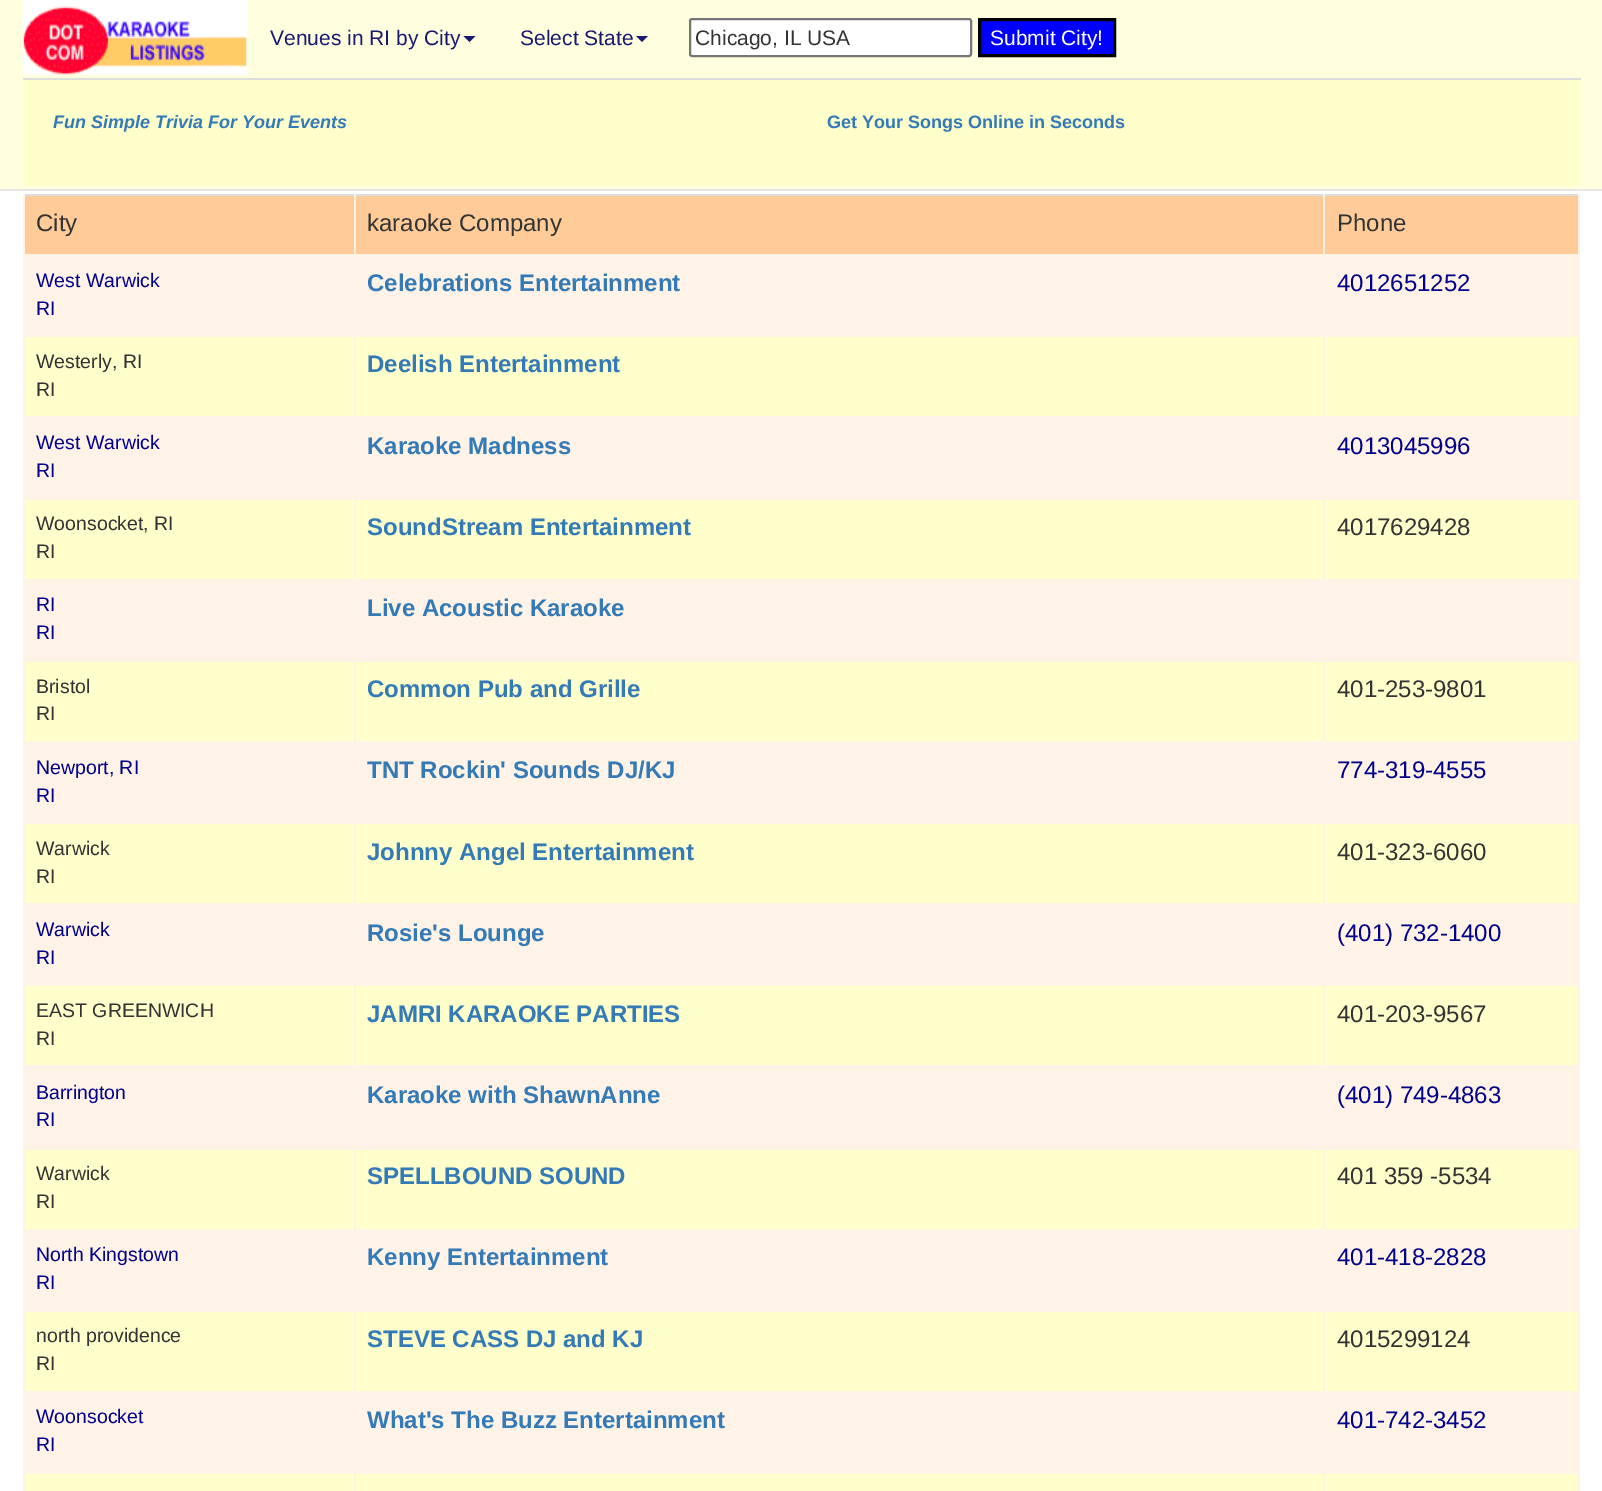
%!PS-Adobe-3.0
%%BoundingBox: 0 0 1602 1491
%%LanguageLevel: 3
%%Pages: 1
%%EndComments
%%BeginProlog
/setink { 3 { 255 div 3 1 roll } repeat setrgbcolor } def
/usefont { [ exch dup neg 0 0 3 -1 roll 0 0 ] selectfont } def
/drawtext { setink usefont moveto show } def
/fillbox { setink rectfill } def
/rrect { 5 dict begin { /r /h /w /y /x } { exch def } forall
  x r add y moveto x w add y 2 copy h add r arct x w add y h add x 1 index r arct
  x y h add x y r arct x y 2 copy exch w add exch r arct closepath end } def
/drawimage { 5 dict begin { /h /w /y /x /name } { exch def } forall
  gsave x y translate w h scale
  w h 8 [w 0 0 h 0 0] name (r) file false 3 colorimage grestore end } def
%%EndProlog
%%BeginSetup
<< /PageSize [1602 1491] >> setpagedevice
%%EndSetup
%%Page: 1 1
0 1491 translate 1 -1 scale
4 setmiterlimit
0 0 1602 1491 255 255 255 fillbox
0 0 1602 189 255 255 224 fillbox
0 189 1602 2 231 231 231 fillbox
(assets/img1.rgb) 22 0 226 75 drawimage
(Venues in RI by City) 270 45 /LiberationSans-Regular 21 25 25 112 drawtext
463.5 36 moveto 475.5 36 lineto 469.5 42 lineto closepath fill
(Select State) 520 45 /LiberationSans-Regular 21 25 25 112 drawtext
636 36 moveto 648 36 lineto 642 42 lineto closepath fill
255 255 255 setink
690 19 281 37 2 rrect gsave fill grestore
118 118 118 setink
2 setlinewidth
stroke
(Chicago, IL USA) 695 45 /LiberationSans-Regular 21 51 51 51 drawtext
0 0 255 setink
979.5 19.5 moveto 1114.5 19.5 lineto 1114.5 55.5 lineto 979.5 55.5 lineto closepath gsave fill grestore
0 0 0 setink
3 setlinewidth
stroke
(Submit City!) 990 45 /LiberationSans-Regular 21 255 255 255 drawtext
23 80 1557 106 255 255 204 fillbox
(Fun Simple Trivia For Your Events) 53 128 /LiberationSans-BoldItalic 18 51 122 183 drawtext
23 78 1558 2 221 221 221 fillbox
(Get Your Songs Online in Seconds) 827 128 /LiberationSans-Bold 18 51 122 183 drawtext
25 196 1553 58 255 204 153 fillbox
23 194 1557 2 221 221 221 fillbox
1578 254 2 1237 255 242 230 fillbox
1578 194 2 61 255 242 230 fillbox
1323 254 2 2 255 242 230 fillbox
1323 254 257 2 255 242 230 fillbox
1323 194 2 61 255 242 230 fillbox
354 254 2 2 255 242 230 fillbox
354 254 971 2 255 242 230 fillbox
354 194 2 61 255 242 230 fillbox
25 337 1553 79 255 255 204 fillbox
1323 416 257 2 255 242 230 fillbox
1323 335 2 82 255 242 230 fillbox
354 416 2 2 255 242 230 fillbox
354 416 971 2 255 242 230 fillbox
354 335 2 82 255 242 230 fillbox
25 500 1553 79 255 255 204 fillbox
1323 579 257 2 255 242 230 fillbox
1323 498 2 83 255 242 230 fillbox
354 579 2 2 255 242 230 fillbox
354 579 971 2 255 242 230 fillbox
354 498 2 83 255 242 230 fillbox
25 662 1553 79 255 255 204 fillbox
1323 741 257 2 255 242 230 fillbox
1323 660 2 83 255 242 230 fillbox
354 741 2 2 255 242 230 fillbox
354 741 971 2 255 242 230 fillbox
354 660 2 83 255 242 230 fillbox
25 824 1553 79 255 255 204 fillbox
1323 903 257 2 255 242 230 fillbox
1323 822 2 83 255 242 230 fillbox
354 903 2 2 255 242 230 fillbox
354 903 971 2 255 242 230 fillbox
354 822 2 83 255 242 230 fillbox
25 986 1553 79 255 255 204 fillbox
1323 1065 257 2 255 242 230 fillbox
1323 984 2 83 255 242 230 fillbox
354 1065 2 2 255 242 230 fillbox
354 1065 971 2 255 242 230 fillbox
354 984 2 83 255 242 230 fillbox
25 1150 1553 79 255 255 204 fillbox
1323 1229 257 2 255 242 230 fillbox
1323 1148 2 82 255 242 230 fillbox
354 1229 2 2 255 242 230 fillbox
354 1229 971 2 255 242 230 fillbox
354 1148 2 82 255 242 230 fillbox
25 1312 1553 79 255 255 204 fillbox
1323 1391 257 2 255 242 230 fillbox
1323 1310 2 82 255 242 230 fillbox
354 1391 2 2 255 242 230 fillbox
354 1391 971 2 255 242 230 fillbox
354 1310 2 82 255 242 230 fillbox
23 1472 2 19 255 242 230 fillbox
25 1474 1553 17 255 255 204 fillbox
354 1472 2 19 255 242 230 fillbox
1323 1472 2 19 255 242 230 fillbox
23 1472 1557 2 255 242 230 fillbox
23 1391 2 82 255 242 230 fillbox
23 1391 333 2 255 242 230 fillbox
23 1310 2 82 255 242 230 fillbox
23 1310 1557 2 255 242 230 fillbox
23 1229 2 82 255 242 230 fillbox
23 1229 333 2 255 242 230 fillbox
23 1148 2 82 255 242 230 fillbox
23 1148 1557 2 255 242 230 fillbox
23 1065 2 84 255 242 230 fillbox
23 1065 333 2 255 242 230 fillbox
23 984 2 83 255 242 230 fillbox
23 984 1557 2 255 242 230 fillbox
23 903 2 83 255 242 230 fillbox
23 903 333 2 255 242 230 fillbox
23 822 2 83 255 242 230 fillbox
23 822 1557 2 255 242 230 fillbox
23 741 2 83 255 242 230 fillbox
23 741 333 2 255 242 230 fillbox
23 660 2 83 255 242 230 fillbox
23 660 1557 2 255 242 230 fillbox
23 579 2 83 255 242 230 fillbox
23 579 333 2 255 242 230 fillbox
23 498 2 83 255 242 230 fillbox
23 498 1557 2 255 242 230 fillbox
23 416 2 84 255 242 230 fillbox
23 416 333 2 255 242 230 fillbox
23 335 2 82 255 242 230 fillbox
23 335 1557 2 255 242 230 fillbox
23 254 2 82 255 242 230 fillbox
23 254 333 2 255 242 230 fillbox
23 194 2 61 255 242 230 fillbox
(City) 36 231 /LiberationSans-Regular 24 51 51 51 drawtext
(karaoke Company) 367 231 /LiberationSans-Regular 24 51 51 51 drawtext
(Phone) 1337 231 /LiberationSans-Regular 24 51 51 51 drawtext
25 256 1553 79 255 242 230 fillbox
(West Warwick) 36 287 /LiberationSans-Regular 19.5 0 0 139 drawtext
(RI) 36 315 /LiberationSans-Regular 19.5 0 0 139 drawtext
(Celebrations Entertainment) 367 291 /LiberationSans-Bold 24 51 122 183 drawtext
(4012651252) 1337 291 /LiberationSans-Regular 24 0 0 139 drawtext
(Westerly, RI) 36 368 /LiberationSans-Regular 19.5 51 51 51 drawtext
(RI) 36 396 /LiberationSans-Regular 19.5 51 51 51 drawtext
(Deelish Entertainment) 367 372 /LiberationSans-Bold 24 51 122 183 drawtext
25 418 1553 80 255 242 230 fillbox
(West Warwick) 36 449 /LiberationSans-Regular 19.5 0 0 139 drawtext
(RI) 36 477 /LiberationSans-Regular 19.5 0 0 139 drawtext
(Karaoke Madness) 367 454 /LiberationSans-Bold 24 51 122 183 drawtext
(4013045996) 1337 454 /LiberationSans-Regular 24 0 0 139 drawtext
(Woonsocket, RI) 36 530 /LiberationSans-Regular 19.5 51 51 51 drawtext
(RI) 36 558 /LiberationSans-Regular 19.5 51 51 51 drawtext
(SoundStream Entertainment) 367 535 /LiberationSans-Bold 24 51 122 183 drawtext
(4017629428) 1337 535 /LiberationSans-Regular 24 51 51 51 drawtext
25 581 1553 79 255 242 230 fillbox
(RI) 36 611 /LiberationSans-Regular 19.5 0 0 139 drawtext
(RI) 36 639 /LiberationSans-Regular 19.5 0 0 139 drawtext
(Live Acoustic Karaoke) 367 616 /LiberationSans-Bold 24 51 122 183 drawtext
(Bristol) 36 693 /LiberationSans-Regular 19.5 51 51 51 drawtext
(RI) 36 720 /LiberationSans-Regular 19.5 51 51 51 drawtext
(Common Pub and Grille) 367 697 /LiberationSans-Bold 24 51 122 183 drawtext
(401-253-9801) 1337 697 /LiberationSans-Regular 24 51 51 51 drawtext
25 743 1553 79 255 242 230 fillbox
(Newport, RI) 36 774 /LiberationSans-Regular 19.5 0 0 139 drawtext
(RI) 36 802 /LiberationSans-Regular 19.5 0 0 139 drawtext
(TNT Rockin' Sounds DJ/KJ) 367 778 /LiberationSans-Bold 24 51 122 183 drawtext
(774-319-4555) 1337 778 /LiberationSans-Regular 24 0 0 139 drawtext
(Warwick) 36 855 /LiberationSans-Regular 19.5 51 51 51 drawtext
(RI) 36 883 /LiberationSans-Regular 19.5 51 51 51 drawtext
(Johnny Angel Entertainment) 367 860 /LiberationSans-Bold 24 51 122 183 drawtext
(401-323-6060) 1337 860 /LiberationSans-Regular 24 51 51 51 drawtext
25 905 1553 79 255 242 230 fillbox
(Warwick) 36 936 /LiberationSans-Regular 19.5 0 0 139 drawtext
(RI) 36 964 /LiberationSans-Regular 19.5 0 0 139 drawtext
(Rosie's Lounge) 367 941 /LiberationSans-Bold 24 51 122 183 drawtext
(\(401\) 732-1400) 1337 941 /LiberationSans-Regular 24 0 0 139 drawtext
(EAST GREENWICH) 36 1017 /LiberationSans-Regular 19.5 51 51 51 drawtext
(RI) 36 1045 /LiberationSans-Regular 19.5 51 51 51 drawtext
(JAMRI KARAOKE PARTIES) 367 1022 /LiberationSans-Bold 24 51 122 183 drawtext
(401-203-9567) 1337 1022 /LiberationSans-Regular 24 51 51 51 drawtext
25 1067 1553 81 255 242 230 fillbox
(Barrington) 36 1099 /LiberationSans-Regular 19.5 0 0 139 drawtext
(RI) 36 1126 /LiberationSans-Regular 19.5 0 0 139 drawtext
(Karaoke with ShawnAnne) 367 1103 /LiberationSans-Bold 24 51 122 183 drawtext
(\(401\) 749-4863) 1337 1103 /LiberationSans-Regular 24 0 0 139 drawtext
(Warwick) 36 1180 /LiberationSans-Regular 19.5 51 51 51 drawtext
(RI) 36 1208 /LiberationSans-Regular 19.5 51 51 51 drawtext
(SPELLBOUND SOUND) 367 1184 /LiberationSans-Bold 24 51 122 183 drawtext
(401 359 -5534) 1337 1184 /LiberationSans-Regular 24 51 51 51 drawtext
25 1231 1553 79 255 242 230 fillbox
(North Kingstown) 36 1261 /LiberationSans-Regular 19.5 0 0 139 drawtext
(RI) 36 1289 /LiberationSans-Regular 19.5 0 0 139 drawtext
(Kenny Entertainment) 367 1265 /LiberationSans-Bold 24 51 122 183 drawtext
(401-418-2828) 1337 1265 /LiberationSans-Regular 24 0 0 139 drawtext
(north providence) 36 1342 /LiberationSans-Regular 19.5 51 51 51 drawtext
(RI) 36 1370 /LiberationSans-Regular 19.5 51 51 51 drawtext
(STEVE CASS DJ and KJ) 367 1347 /LiberationSans-Bold 24 51 122 183 drawtext
(4015299124) 1337 1347 /LiberationSans-Regular 24 51 51 51 drawtext
25 1393 1553 79 255 242 230 fillbox
(Woonsocket) 36 1423 /LiberationSans-Regular 19.5 0 0 139 drawtext
(RI) 36 1451 /LiberationSans-Regular 19.5 0 0 139 drawtext
(What's The Buzz Entertainment) 367 1428 /LiberationSans-Bold 24 51 122 183 drawtext
(401-742-3452) 1337 1428 /LiberationSans-Regular 24 0 0 139 drawtext
showpage
%%EOF
